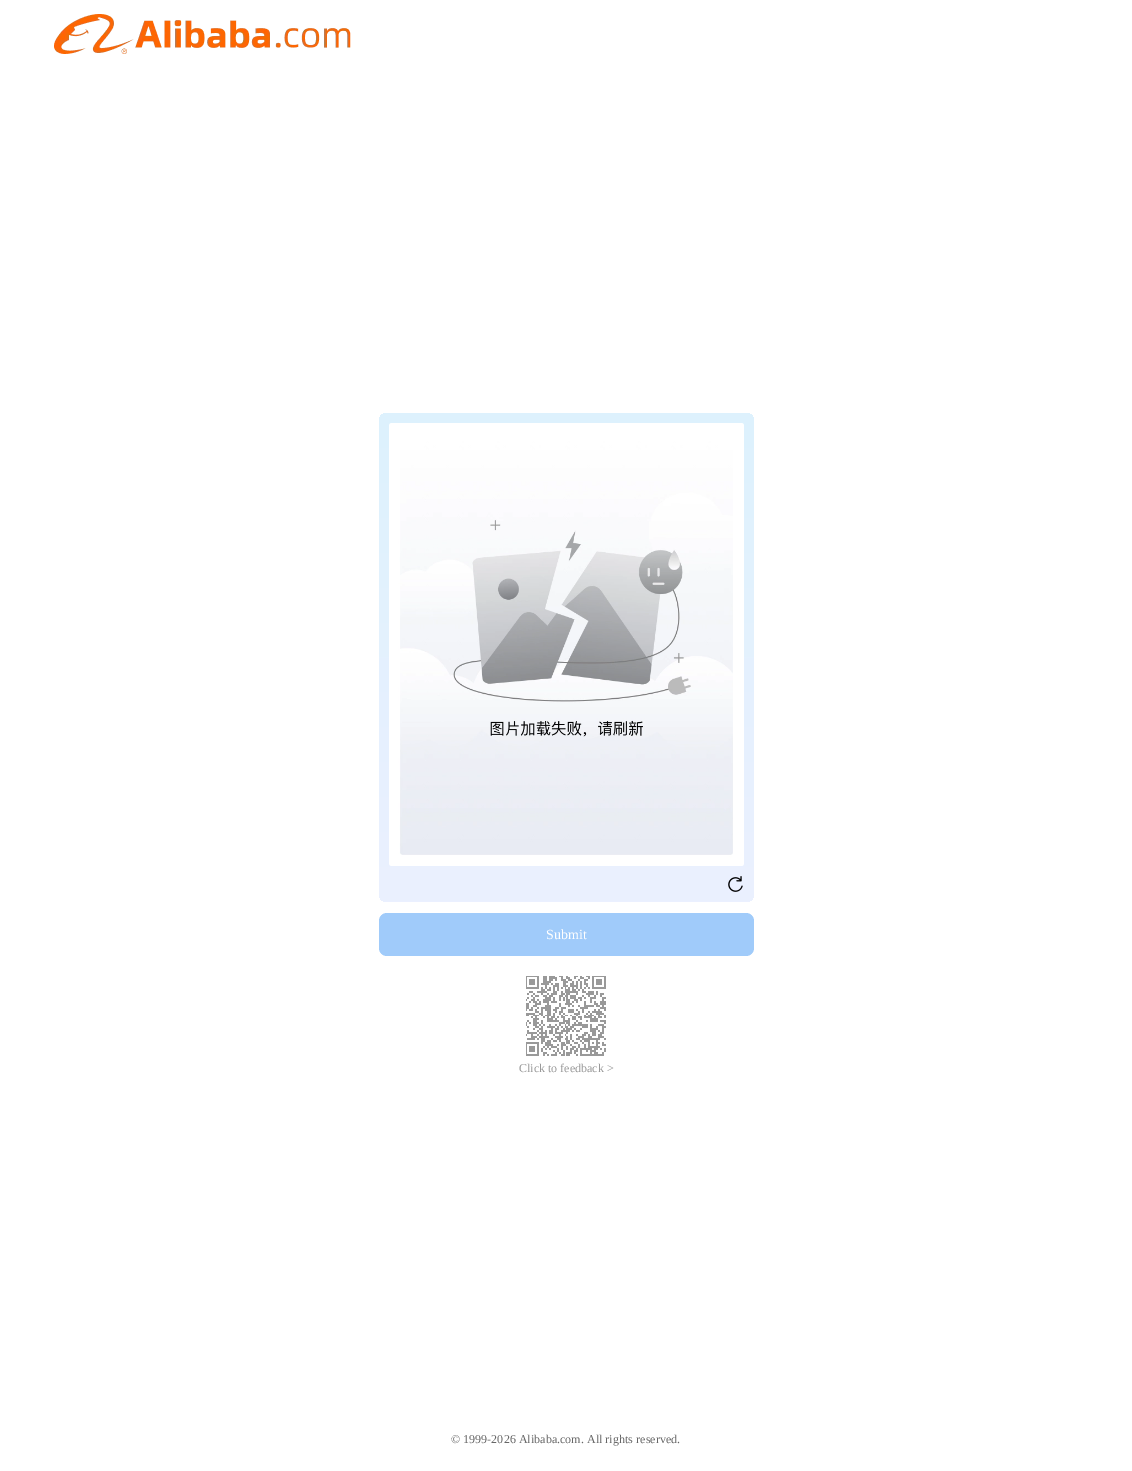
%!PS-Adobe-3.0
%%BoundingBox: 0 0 1132 1471
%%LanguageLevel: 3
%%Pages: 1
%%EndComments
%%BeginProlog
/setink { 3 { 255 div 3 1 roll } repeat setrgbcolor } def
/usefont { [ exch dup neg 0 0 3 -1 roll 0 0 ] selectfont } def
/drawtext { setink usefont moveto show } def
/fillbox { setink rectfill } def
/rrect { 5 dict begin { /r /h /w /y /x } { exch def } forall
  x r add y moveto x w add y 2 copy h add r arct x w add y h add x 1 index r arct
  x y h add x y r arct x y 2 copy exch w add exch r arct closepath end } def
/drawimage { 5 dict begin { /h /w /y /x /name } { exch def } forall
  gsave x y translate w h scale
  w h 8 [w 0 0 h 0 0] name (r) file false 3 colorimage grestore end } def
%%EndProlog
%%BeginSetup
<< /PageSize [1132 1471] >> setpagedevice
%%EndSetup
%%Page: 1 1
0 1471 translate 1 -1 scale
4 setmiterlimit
0 0 1132 1471 255 255 255 fillbox
(assets/img1.rgb) 54 14 297 40 drawimage
gsave 379 413 375 489 8 rrect clip newpath
<< /ShadingType 2 /ColorSpace /DeviceRGB /Coords [567 413 567 902] /Extend [true true] /Function << /FunctionType 2 /Domain [0 1] /C0 [0.867 0.949 0.992] /C1 [0.922 0.941 1] /N 1 >> >> shfill grestore
(assets/img2.rgb) 389 423 355 443 drawimage
(assets/img3.rgb) 728 876 15 16 drawimage
160 203 250 setink
379 913 375 43 8 rrect fill
(Submit) 546 939 /LiberationSerif-Regular 14 255 255 255 drawtext
(assets/img4.rgb) 526 976 80 80 drawimage
(Click to feedback >) 519 1072 /LiberationSerif-Regular 12 153 153 153 drawtext
102 102 102 setink
451 1443 moveto 0.05 0 (© 1999-2026 Alibaba.com. All rights reserved.) ashow
showpage
%%EOF
